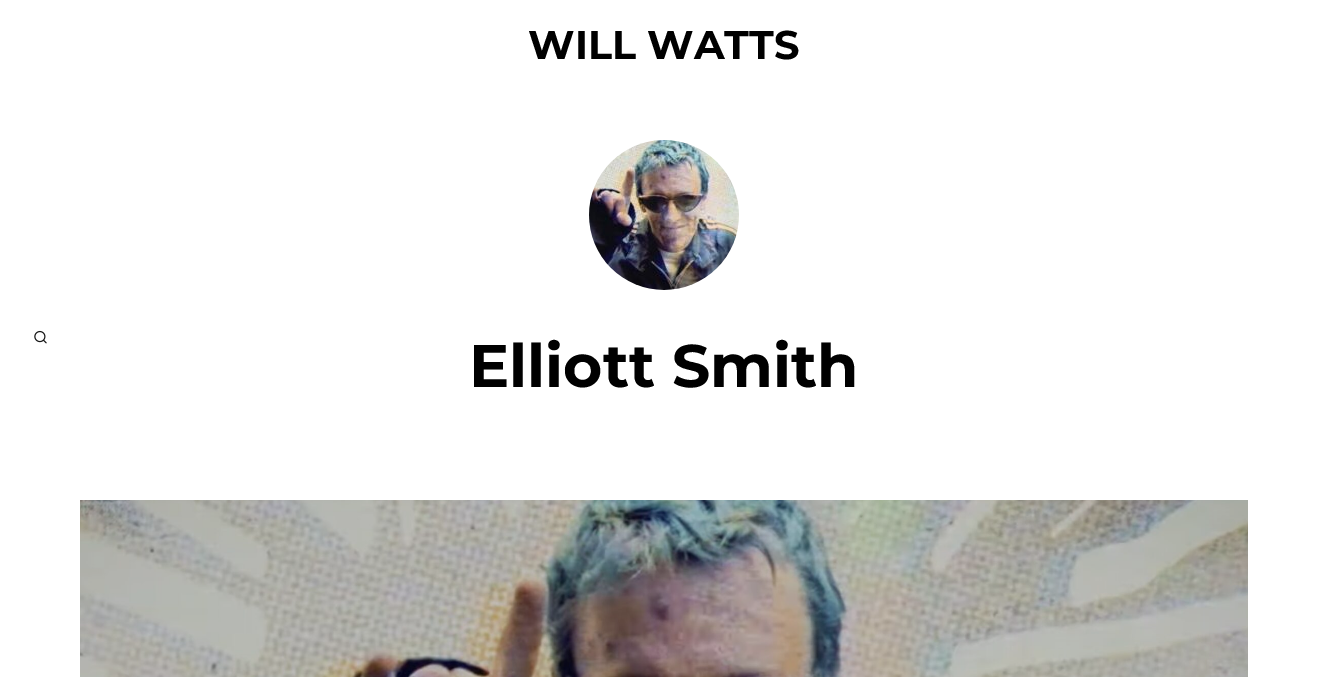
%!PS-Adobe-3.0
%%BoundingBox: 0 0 1328 677
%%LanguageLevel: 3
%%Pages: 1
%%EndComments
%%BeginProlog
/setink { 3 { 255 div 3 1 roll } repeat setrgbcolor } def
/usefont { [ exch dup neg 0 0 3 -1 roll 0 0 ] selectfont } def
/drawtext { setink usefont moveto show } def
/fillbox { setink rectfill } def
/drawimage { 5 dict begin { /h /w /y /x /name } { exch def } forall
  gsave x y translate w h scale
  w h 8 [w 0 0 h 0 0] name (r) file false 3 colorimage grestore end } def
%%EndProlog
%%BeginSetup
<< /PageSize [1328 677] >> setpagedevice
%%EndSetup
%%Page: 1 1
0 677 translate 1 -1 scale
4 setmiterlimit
0 0 1328 677 255 255 255 fillbox
(WILL WATTS) 528 59 /Montserrat-Bold 40 0 0 0 drawtext
(assets/img1.rgb) 34 330 13 14 drawimage
(assets/img2.rgb) 589 140 150 150 drawimage
(Elliott Smith) 469 387 /Montserrat-Bold 60 0 0 0 drawtext
(assets/img3.rgb) 80 500 1168 177 drawimage
showpage
%%EOF
